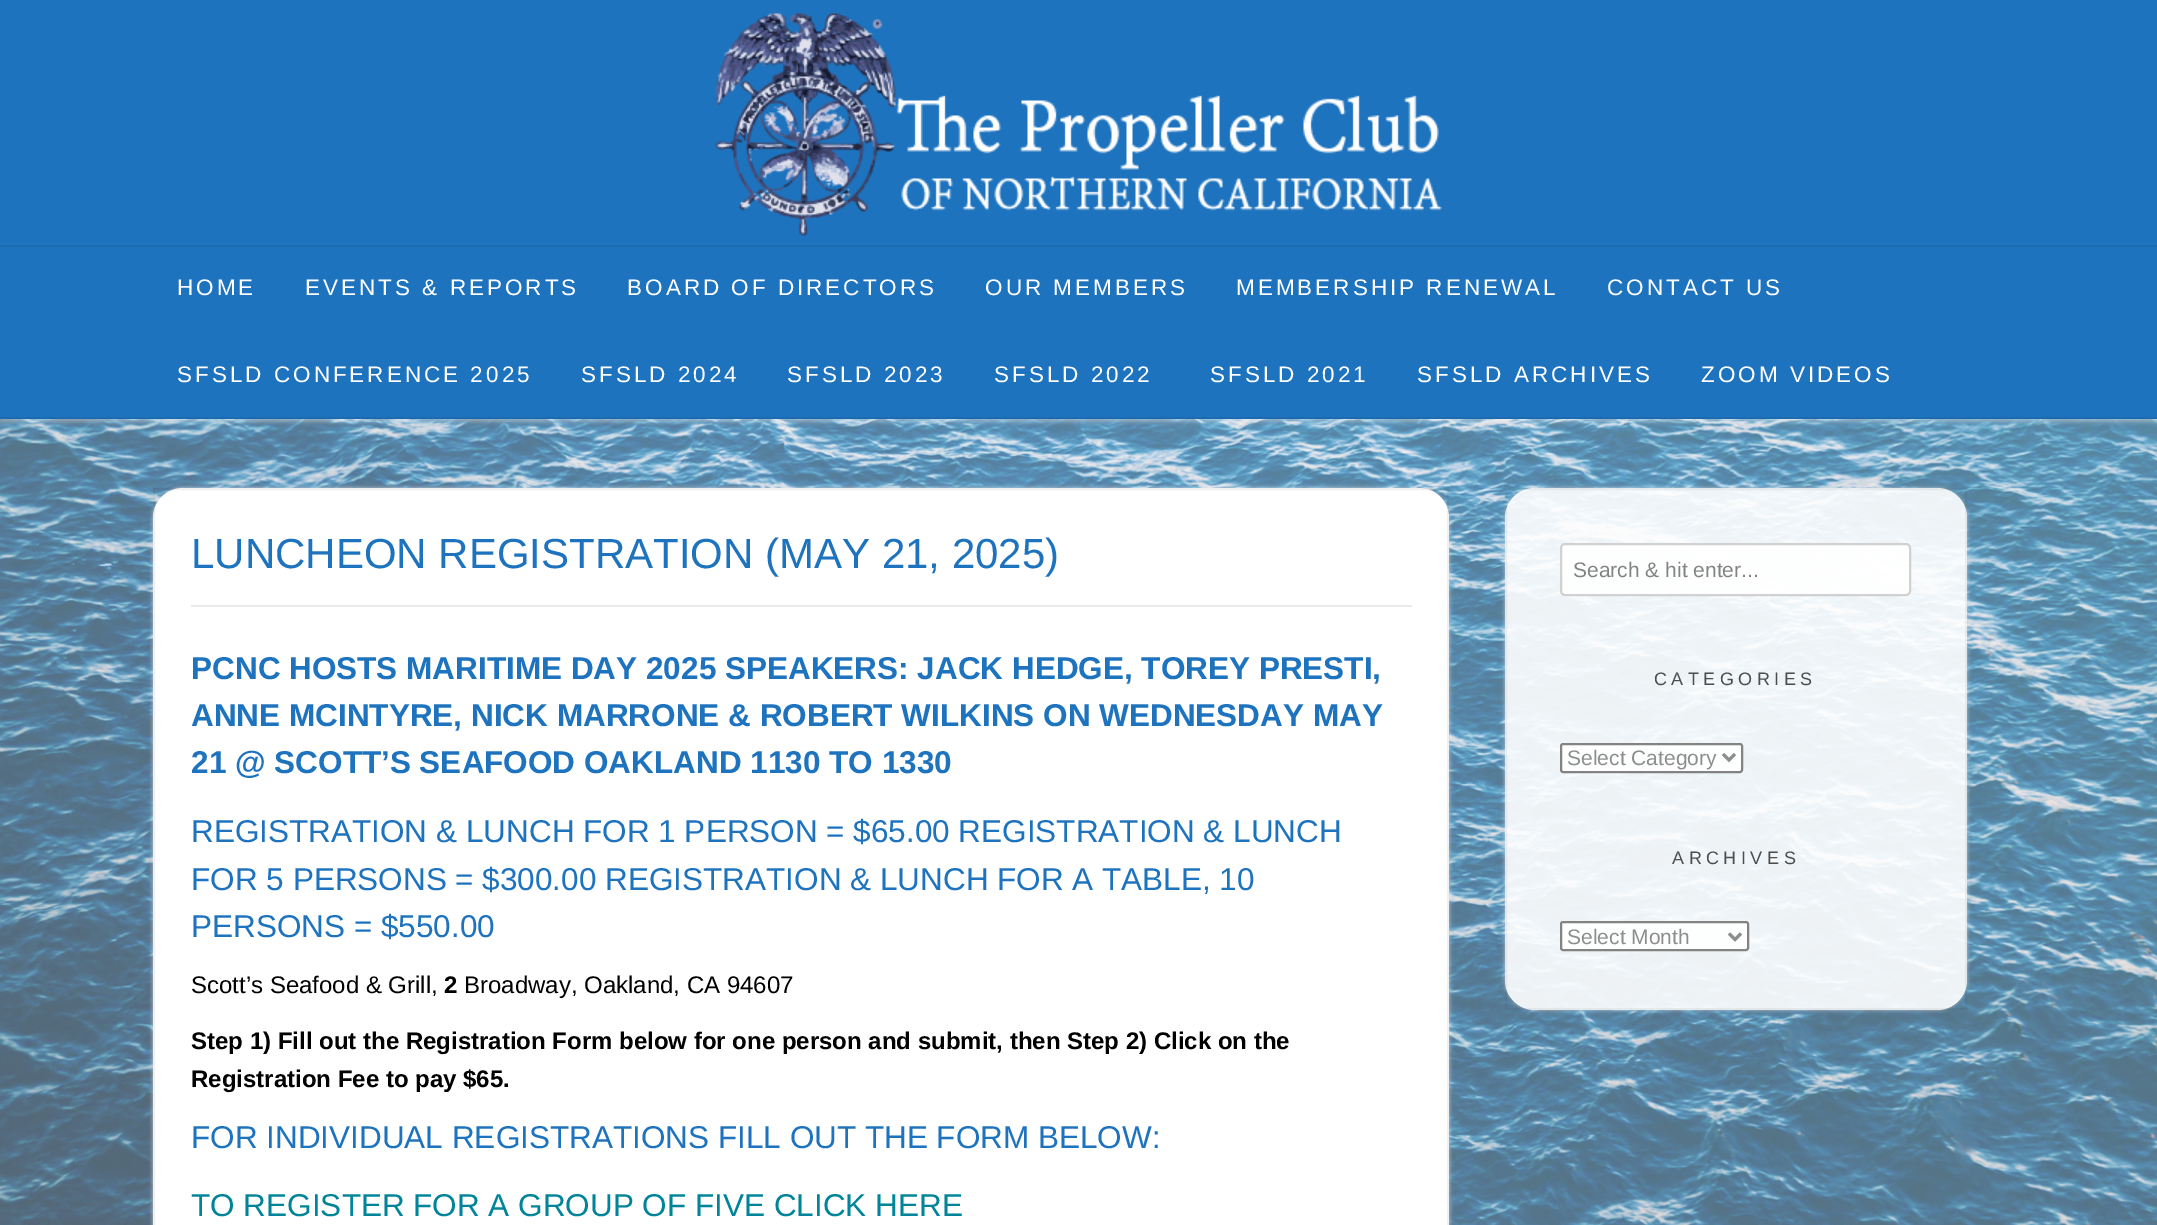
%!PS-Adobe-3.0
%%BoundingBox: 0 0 2157 1225
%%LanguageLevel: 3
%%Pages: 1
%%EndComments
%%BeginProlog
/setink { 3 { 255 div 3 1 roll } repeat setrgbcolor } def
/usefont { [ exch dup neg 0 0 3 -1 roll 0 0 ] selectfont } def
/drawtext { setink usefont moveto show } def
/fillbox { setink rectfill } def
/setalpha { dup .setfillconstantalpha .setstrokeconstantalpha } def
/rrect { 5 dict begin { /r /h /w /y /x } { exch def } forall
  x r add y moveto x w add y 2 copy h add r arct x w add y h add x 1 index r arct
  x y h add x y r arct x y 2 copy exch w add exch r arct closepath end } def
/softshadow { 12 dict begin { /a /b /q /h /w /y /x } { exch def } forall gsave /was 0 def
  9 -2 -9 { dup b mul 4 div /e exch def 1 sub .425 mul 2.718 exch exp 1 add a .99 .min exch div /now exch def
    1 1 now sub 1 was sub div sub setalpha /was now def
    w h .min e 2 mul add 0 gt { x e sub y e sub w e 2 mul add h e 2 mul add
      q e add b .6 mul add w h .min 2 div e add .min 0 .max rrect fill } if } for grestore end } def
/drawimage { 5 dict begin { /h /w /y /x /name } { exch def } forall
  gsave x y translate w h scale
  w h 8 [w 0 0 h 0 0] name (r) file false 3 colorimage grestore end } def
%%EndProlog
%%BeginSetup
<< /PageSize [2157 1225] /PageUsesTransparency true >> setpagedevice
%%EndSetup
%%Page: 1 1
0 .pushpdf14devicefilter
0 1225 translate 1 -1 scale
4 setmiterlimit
0 0 2157 1225 255 255 255 fillbox
(assets/img1.rgb) 0 419 2157 806 drawimage
0 0 2157 245 30 115 190 fillbox
(assets/img2.rgb) 715 13 727 223 drawimage
238 238 238 setink
0 248 2157 174 0 2 0.4 softshadow
0 247 2157 170 30 115 190 fillbox
0 245 2157 2 28 106 175 fillbox
0 417 2157 2 28 106 175 fillbox
/LiberationSans-Regular 22.5 usefont
255 255 255 setink
177 295 moveto 3 0 (HOME) ashow
305 295 moveto 3 0 (EVENTS & REPORTS) ashow
627 295 moveto 3 0 (BOARD OF DIRECTORS) ashow
985 295 moveto 3 0 (OUR MEMBERS) ashow
1236 295 moveto 3 0 (MEMBERSHIP RENEWAL) ashow
1607 295 moveto 3 0 (CONTACT US) ashow
177 382 moveto 3 0 (SFSLD CONFERENCE 2025) ashow
581 382 moveto 3 0 (SFSLD 2024) ashow
787 382 moveto 3 0 (SFSLD 2023) ashow
994 382 moveto 3 0 (SFSLD 2022) ashow
1210 382 moveto 3 0 (SFSLD 2021) ashow
1417 382 moveto 3 0 (SFSLD ARCHIVES) ashow
1701 382 moveto 3 0 (ZOOM VIDEOS) ashow
238 238 238 setink
153 488 1296 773 30 2 0.72 softshadow
255 255 255 setink
153 488 1296 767 30 rrect fill
0.06 setalpha
0 0 0 setink
2 setlinewidth
154 489 1294 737 rectstroke
1 setalpha
191 605 1221 2 235 235 235 fillbox
(LUNCHEON REGISTRATION \(MAY 21, 2025\)) 191 568 /LiberationSans-Regular 42 30 115 190 drawtext
(PCNC HOSTS MARITIME DAY 2025 SPEAKERS: JACK HEDGE, TOREY PRESTI,) 191 679 /LiberationSans-Bold 31.5 30 115 190 drawtext
(ANNE MCINTYRE, NICK MARRONE & ROBERT WILKINS ON WEDNESDAY MAY) 191 726 /LiberationSans-Bold 31.5 30 115 190 drawtext
(21 @ SCOTT’S SEAFOOD OAKLAND 1130 TO 1330) 191 773 /LiberationSans-Bold 31.5 30 115 190 drawtext
(REGISTRATION & LUNCH FOR 1 PERSON = $65.00 REGISTRATION & LUNCH) 191 842 /LiberationSans-Regular 31.5 30 115 190 drawtext
(FOR 5 PERSONS = $300.00 REGISTRATION & LUNCH FOR A TABLE, 10) 191 890 /LiberationSans-Regular 31.5 30 115 190 drawtext
(PERSONS = $550.00) 191 937 /LiberationSans-Regular 31.5 30 115 190 drawtext
(Scott’s Seafood & Grill,) 191 993 /LiberationSans-Regular 24 0 0 0 drawtext
(2) 444 993 /LiberationSans-Bold 24 0 0 0 drawtext
(Broadway, Oakland, CA 94607) 464 993 /LiberationSans-Regular 24 0 0 0 drawtext
(Step 1\) Fill out the Registration Form below for one person and submit, then Step 2\) Click on the) 191 1049 /LiberationSans-Bold 24 0 0 0 drawtext
(Registration Fee to pay $65.) 191 1087 /LiberationSans-Bold 24 0 0 0 drawtext
(FOR INDIVIDUAL REGISTRATIONS FILL OUT THE FORM BELOW:) 191 1148 /LiberationSans-Regular 31.5 30 115 190 drawtext
(TO REGISTER FOR A GROUP OF FIVE CLICK HERE) 191 1216 /LiberationSans-Regular 31.5 0 132 153 drawtext
gsave
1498 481 moveto 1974 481 lineto 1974 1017 lineto 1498 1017 lineto closepath 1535 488 moveto 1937 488 lineto 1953.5 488 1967 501.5 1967 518 curveto 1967 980 lineto 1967 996.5 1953.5 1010 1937 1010 curveto 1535 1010 lineto 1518.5 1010 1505 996.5 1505 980 curveto 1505 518 lineto 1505 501.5 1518.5 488 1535 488 curveto closepath eoclip newpath
238 238 238 setink
1505 488 462 522 30 2 0.65 softshadow
grestore
0.9 setalpha
255 255 255 setink
1505 488 462 522 30 rrect fill
0.05 setalpha
0 0 0 setink
1506 489 460 520 rectstroke
0.9 setalpha
255 255 255 setink
1560 543 351 53 5 rrect fill
204 204 204 setink
1561 544 349 51 4 rrect stroke
1 setalpha
(Search & hit enter...) 1573 577 /LiberationSans-Regular 21 131 131 131 drawtext
/LiberationSans-Regular 18 usefont
76 77 77 setink
1654 685 moveto 4.5 0 (CATEGORIES) ashow
0.9 setalpha
255 255 255 setink
1560 743 183 30 3 rrect fill
118 118 118 setink
1561 744 181 28 2 rrect stroke
1 setalpha
141 141 141 setink
3 setlinewidth
1723 754 moveto 1729 760 lineto 1735 754 lineto stroke
(Select Category) 1567 765 /LiberationSans-Regular 21 141 141 141 drawtext
/LiberationSans-Regular 18 usefont
76 77 77 setink
1672 864 moveto 4.5 0 (ARCHIVES) ashow
0.9 setalpha
255 255 255 setink
1560 921 189 30 3 rrect fill
118 118 118 setink
2 setlinewidth
1561 922 187 28 2 rrect stroke
1 setalpha
141 141 141 setink
3 setlinewidth
1729 933.5 moveto 1735 939.5 lineto 1741 933.5 lineto stroke
(Select Month) 1567 944 /LiberationSans-Regular 21 141 141 141 drawtext
.poppdf14devicefilter showpage
%%EOF
